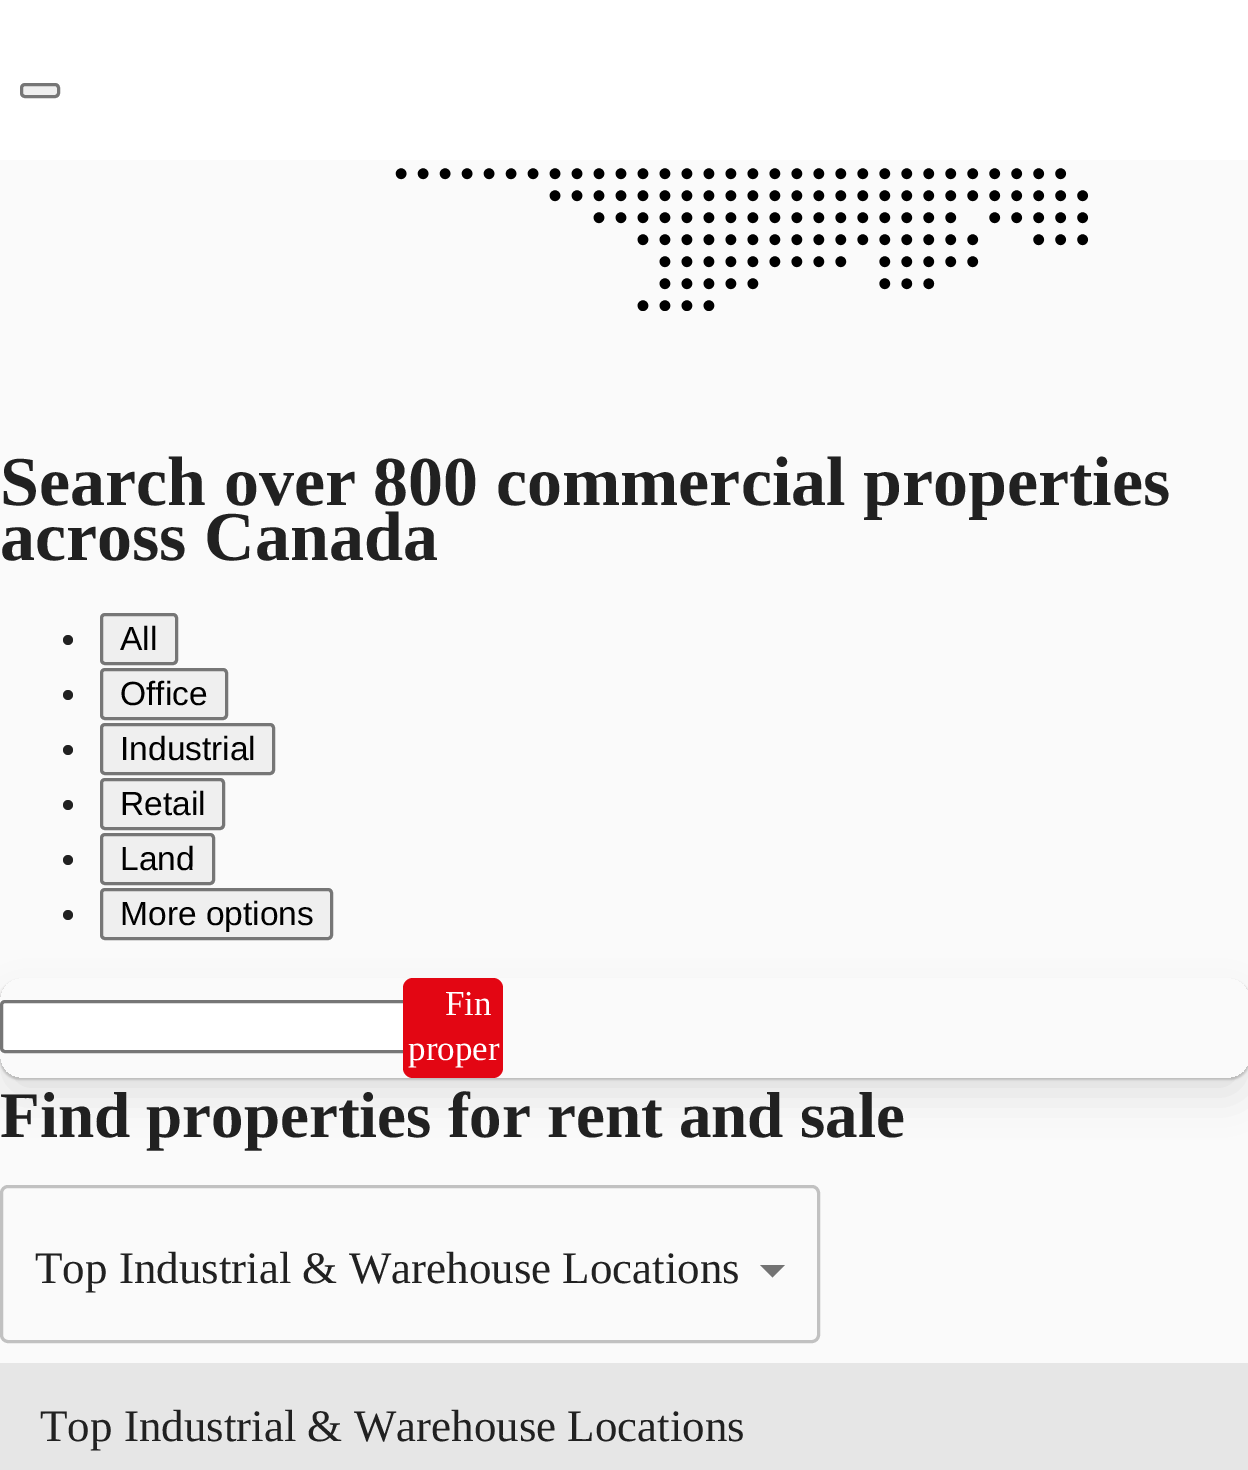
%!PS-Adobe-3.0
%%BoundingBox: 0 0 1248 1470
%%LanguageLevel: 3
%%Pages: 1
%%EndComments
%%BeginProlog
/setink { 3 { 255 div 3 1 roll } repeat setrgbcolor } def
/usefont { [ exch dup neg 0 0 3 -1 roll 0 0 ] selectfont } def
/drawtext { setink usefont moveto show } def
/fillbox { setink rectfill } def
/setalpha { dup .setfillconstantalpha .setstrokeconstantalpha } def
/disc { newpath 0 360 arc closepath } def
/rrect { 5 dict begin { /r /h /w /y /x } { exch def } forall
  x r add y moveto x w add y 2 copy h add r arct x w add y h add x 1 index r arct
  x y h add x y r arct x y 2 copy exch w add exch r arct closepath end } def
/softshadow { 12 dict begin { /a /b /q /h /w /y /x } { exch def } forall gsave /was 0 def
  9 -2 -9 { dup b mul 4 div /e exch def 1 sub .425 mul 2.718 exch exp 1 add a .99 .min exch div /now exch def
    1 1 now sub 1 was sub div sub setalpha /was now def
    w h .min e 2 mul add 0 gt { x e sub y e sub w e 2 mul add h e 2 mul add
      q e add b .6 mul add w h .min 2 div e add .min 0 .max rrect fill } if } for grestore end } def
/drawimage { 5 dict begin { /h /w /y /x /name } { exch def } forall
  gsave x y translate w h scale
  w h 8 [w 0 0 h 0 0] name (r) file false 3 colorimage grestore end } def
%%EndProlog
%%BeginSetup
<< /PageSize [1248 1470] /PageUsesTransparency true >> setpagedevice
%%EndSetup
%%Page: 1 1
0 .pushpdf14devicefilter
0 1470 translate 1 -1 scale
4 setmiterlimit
0 0 1248 1470 250 250 250 fillbox
0 0 1248 160 255 255 255 fillbox
239 239 239 setink
21.5 84.5 37 12 3.5 rrect gsave fill grestore
118 118 118 setink
3 setlinewidth
stroke
(assets/img1.rgb) 395 168 694 143 drawimage
(Search over 800 commercial properties) 0 505 /LiberationSerif-Bold 70 33 33 33 drawtext
(across Canada) 0 560 /LiberationSerif-Bold 70 33 33 33 drawtext
68 640 5 disc fill
239 239 239 setink
101.5 614.5 75 49 3.5 rrect gsave fill grestore
118 118 118 setink
stroke
(All) 120 650 /LiberationSans-Regular 33.5 0 0 0 drawtext
33 33 33 setink
68 695 5 disc fill
239 239 239 setink
101.5 669.5 125 49 3.5 rrect gsave fill grestore
118 118 118 setink
stroke
(Office) 120 705 /LiberationSans-Regular 33.5 0 0 0 drawtext
33 33 33 setink
68 750 5 disc fill
239 239 239 setink
101.5 724.5 172 49 3.5 rrect gsave fill grestore
118 118 118 setink
stroke
(Industrial) 120 760 /LiberationSans-Regular 33.5 0 0 0 drawtext
33 33 33 setink
68 805 5 disc fill
239 239 239 setink
101.5 779.5 122 49 3.5 rrect gsave fill grestore
118 118 118 setink
stroke
(Retail) 120 815 /LiberationSans-Regular 33.5 0 0 0 drawtext
33 33 33 setink
68 860 5 disc fill
239 239 239 setink
101.5 834.5 112 49 3.5 rrect gsave fill grestore
118 118 118 setink
stroke
(Land) 120 870 /LiberationSans-Regular 33.5 0 0 0 drawtext
33 33 33 setink
68 915 5 disc fill
239 239 239 setink
101.5 889.5 230 49 3.5 rrect gsave fill grestore
118 118 118 setink
stroke
(More options) 120 925 /LiberationSans-Regular 33.5 0 0 0 drawtext
gsave
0 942 moveto 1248 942 lineto 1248 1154 lineto 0 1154 lineto closepath 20 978 moveto 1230 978 lineto 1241 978 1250 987 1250 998 curveto 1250 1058 lineto 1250 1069 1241 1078 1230 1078 curveto 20 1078 lineto 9 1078 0 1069 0 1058 curveto 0 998 lineto 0 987 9 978 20 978 curveto closepath eoclip newpath
25 27 30 setink
5 1003 1240 90 15 20 0.12 softshadow
grestore
gsave
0 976 moveto 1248 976 lineto 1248 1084 lineto 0 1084 lineto closepath 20 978 moveto 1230 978 lineto 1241 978 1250 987 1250 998 curveto 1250 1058 lineto 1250 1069 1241 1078 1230 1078 curveto 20 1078 lineto 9 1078 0 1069 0 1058 curveto 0 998 lineto 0 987 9 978 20 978 curveto closepath eoclip newpath
52 51 50 setink
0 980 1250 100 20 1 0.24 softshadow
grestore
255 255 255 setink
1.5 1001.5 460 50 3.5 rrect gsave fill grestore
118 118 118 setink
stroke
227 6 19 setink
403 978 100 100 10 rrect fill
(Fin) 445 1015 /LiberationSerif-Regular 35 255 255 255 drawtext
(proper) 408 1060 /LiberationSerif-Regular 35 255 255 255 drawtext
(Find properties for rent and sale) 0 1137 /LiberationSerif-Bold 65 33 33 33 drawtext
115 115 115 setink
760 1265 moveto 772.5 1277.5 lineto 785 1265 lineto closepath fill
193 193 193 setink
1.5 1186.5 817 155 6.5 rrect stroke
(Top Industrial & Warehouse Locations) 35 1283 /LiberationSerif-Regular 45 33 33 33 drawtext
0 1363 1248 107 230 230 230 fillbox
(Top Industrial & Warehouse Locations) 40 1441 /LiberationSerif-Regular 45 33 33 33 drawtext
.poppdf14devicefilter showpage
%%EOF
